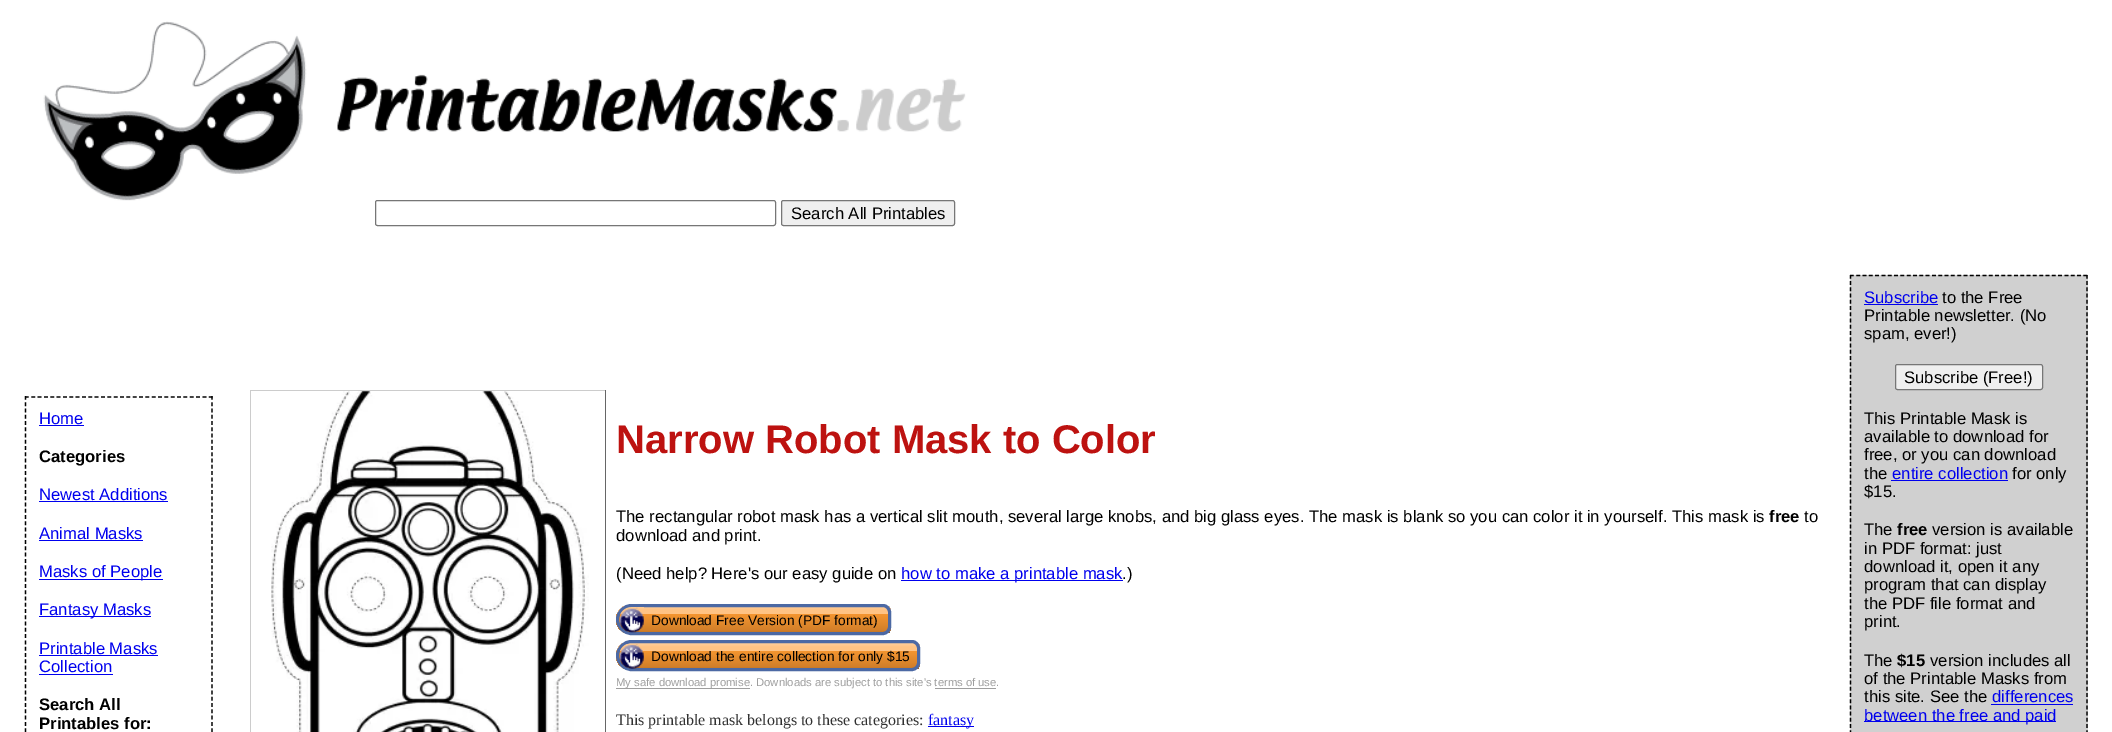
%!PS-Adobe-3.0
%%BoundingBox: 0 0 2112 732
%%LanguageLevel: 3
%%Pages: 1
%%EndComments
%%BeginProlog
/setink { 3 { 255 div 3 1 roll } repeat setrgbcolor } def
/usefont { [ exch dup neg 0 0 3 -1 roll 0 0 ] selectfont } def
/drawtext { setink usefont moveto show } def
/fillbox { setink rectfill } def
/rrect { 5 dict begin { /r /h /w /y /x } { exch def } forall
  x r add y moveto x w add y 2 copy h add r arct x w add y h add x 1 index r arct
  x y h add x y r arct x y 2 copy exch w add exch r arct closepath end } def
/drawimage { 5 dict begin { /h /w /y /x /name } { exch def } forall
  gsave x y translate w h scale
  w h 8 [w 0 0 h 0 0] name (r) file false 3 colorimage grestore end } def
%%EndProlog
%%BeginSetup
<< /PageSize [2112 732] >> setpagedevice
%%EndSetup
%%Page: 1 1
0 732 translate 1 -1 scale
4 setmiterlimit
0 0 2112 732 255 255 255 fillbox
(assets/img1.rgb) 43 21 923 180 drawimage
118 118 118 setink
375.5 200.5 400 25 2 rrect stroke
239 239 239 setink
781.5 200.5 173 25 2 rrect gsave fill grestore
118 118 118 setink
stroke
(Search All Printables) 791 219 /LiberationSans-Regular 16.67 0 0 0 drawtext
1.2 setlinewidth
[3.75 2.59] 0 setdash
25 397 moveto 212.5 397 lineto stroke
[3.75 2.52] 0 setdash
212 396 moveto 212 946 lineto stroke
25.5 396 moveto 25.5 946 lineto stroke
(Home) 39 424 /LiberationSans-Regular 16.67 0 0 238 drawtext
39 425 45 1 0 0 238 fillbox
(Categories) 39 462 /LiberationSans-Bold 16.67 0 0 0 drawtext
(Newest Additions) 39 500 /LiberationSans-Regular 16.67 0 0 238 drawtext
39 501 129 1 0 0 238 fillbox
(Animal Masks) 39 539 /LiberationSans-Regular 16.67 0 0 238 drawtext
39 540 104 1 0 0 238 fillbox
39 579 124 1 0 0 238 fillbox
(Masks of People) 39 577 /LiberationSans-Regular 16.67 0 0 238 drawtext
39 616 112 1 0 0 238 fillbox
(Fantasy Masks) 39 615 /LiberationSans-Regular 16.67 0 0 238 drawtext
(Printable Masks) 39 654 /LiberationSans-Regular 16.67 0 0 238 drawtext
39 655 119 1 0 0 238 fillbox
(Collection) 39 672 /LiberationSans-Regular 16.67 0 0 238 drawtext
39 674 74 1 0 0 238 fillbox
(Search All) 39 710 /LiberationSans-Bold 16.67 0 0 0 drawtext
(Printables for:) 39 729 /LiberationSans-Bold 16.67 0 0 0 drawtext
250 390 356 1 204 204 204 fillbox
605 390 1 342 102 102 102 fillbox
250 390 1 342 204 204 204 fillbox
(assets/img2.rgb) 271 391 318 341 drawimage
(Narrow Robot Mask to Color) 616 453 /LiberationSans-Bold 40 189 18 16 drawtext
(The rectangular robot mask has a vertical slit mouth, several large knobs, and big glass eyes. The mask is blank so you can color it in yourself. This mask is) 616 522 /LiberationSans-Regular 16.67 0 0 0 drawtext
(free) 1769 522 /LiberationSans-Bold 16.67 0 0 0 drawtext
(to) 1804 522 /LiberationSans-Regular 16.67 0 0 0 drawtext
(download and print.) 616 541 /LiberationSans-Regular 16.67 0 0 0 drawtext
(\(Need help? Here's our easy guide on) 616 579 /LiberationSans-Regular 16.67 0 0 0 drawtext
901 580 222 1 0 0 238 fillbox
(how to make a printable mask) 901 579 /LiberationSans-Regular 16.67 0 0 238 drawtext
(.\)) 1122 579 /LiberationSans-Regular 16.67 0 0 0 drawtext
gsave
631.5 604 moveto 883 604 lineto 887.5 604 891 607.5 891 612 curveto 891 627 lineto 891 631.5 887.5 635 883 635 curveto 631.5 635 lineto 623 635 616 628 616 619.5 curveto 616 611 623 604 631.5 604 curveto closepath clip newpath
gsave 616 606 moveto 891 606 lineto 891 633 lineto 616 633 lineto closepath clip newpath
<< /ShadingType 2 /ColorSpace /DeviceRGB /Coords [754 606 754 633] /Extend [true true] /Function << /FunctionType 3 /Domain [0 1] /Functions [<< /FunctionType 2 /Domain [0 1] /C0 [1 0.816 0.62] /C1 [1 0.765 0.518] /N 1 >> << /FunctionType 2 /Domain [0 1] /C0 [1 0.765 0.518] /C1 [1 0.765 0.518] /N 1 >> << /FunctionType 2 /Domain [0 1] /C0 [1 0.765 0.518] /C1 [0.957 0.584 0.188] /N 1 >> << /FunctionType 2 /Domain [0 1] /C0 [0.957 0.584 0.188] /C1 [0.816 0.494 0.161] /N 1 >> << /FunctionType 2 /Domain [0 1] /C0 [0.816 0.494 0.161] /C1 [0.749 0.455 0.145] /N 1 >> << /FunctionType 2 /Domain [0 1] /C0 [0.749 0.455 0.145] /C1 [0.643 0.392 0.125] /N 1 >>] /Bounds [0.15 0.3 0.31 0.94 0.95] /Encode [0 1 0 1 0 1 0 1 0 1 0 1] >> >> shfill grestore
grestore
76 105 164 setink
3 setlinewidth
[] 0 setdash
631.5 605.5 moveto 883 605.5 lineto 886.5 605.5 889.5 608.5 889.5 612 curveto 889.5 627 lineto 889.5 630.5 886.5 633.5 883 633.5 curveto 631.5 633.5 lineto 624 633.5 617.5 627 617.5 619.5 curveto 617.5 612 624 605.5 631.5 605.5 curveto closepath stroke
(assets/img3.rgb) 620 607 24 26 drawimage
(Download Free Version \(PDF format\)) 651 625 /LiberationSans-Regular 13.75 0 0 0 drawtext
gsave
631.5 640 moveto 912 640 lineto 916.5 640 920 643.5 920 648 curveto 920 663 lineto 920 667.5 916.5 671 912 671 curveto 631.5 671 lineto 623 671 616 664 616 655.5 curveto 616 647 623 640 631.5 640 curveto closepath clip newpath
gsave 616 643 moveto 920 643 lineto 920 669 lineto 616 669 lineto closepath clip newpath
<< /ShadingType 2 /ColorSpace /DeviceRGB /Coords [768 643 768 669] /Extend [true true] /Function << /FunctionType 3 /Domain [0 1] /Functions [<< /FunctionType 2 /Domain [0 1] /C0 [1 0.816 0.62] /C1 [1 0.765 0.518] /N 1 >> << /FunctionType 2 /Domain [0 1] /C0 [1 0.765 0.518] /C1 [1 0.765 0.518] /N 1 >> << /FunctionType 2 /Domain [0 1] /C0 [1 0.765 0.518] /C1 [0.957 0.584 0.188] /N 1 >> << /FunctionType 2 /Domain [0 1] /C0 [0.957 0.584 0.188] /C1 [0.816 0.494 0.161] /N 1 >> << /FunctionType 2 /Domain [0 1] /C0 [0.816 0.494 0.161] /C1 [0.749 0.455 0.145] /N 1 >> << /FunctionType 2 /Domain [0 1] /C0 [0.749 0.455 0.145] /C1 [0.643 0.392 0.125] /N 1 >>] /Bounds [0.15 0.3 0.31 0.94 0.95] /Encode [0 1 0 1 0 1 0 1 0 1 0 1] >> >> shfill grestore
grestore
76 105 164 setink
631.5 641.5 moveto 912 641.5 lineto 915.5 641.5 918.5 644.5 918.5 648 curveto 918.5 663 lineto 918.5 666.5 915.5 669.5 912 669.5 curveto 631.5 669.5 lineto 624 669.5 617.5 663 617.5 655.5 curveto 617.5 648 624 641.5 631.5 641.5 curveto closepath stroke
(assets/img4.rgb) 620 644 24 25 drawimage
(Download the entire collection for only $15) 651 661 /LiberationSans-Regular 13.75 0 0 0 drawtext
616 688 134 1 158 158 158 fillbox
(My safe download promise. Downloads are subject to this site's terms of use.) 616 686 /LiberationSans-Regular 11.25 158 158 158 drawtext
935 688 61 1 158 158 158 fillbox
(This printable mask belongs to these categories:) 616 725 /LiberationSerif-Regular 16 49 49 49 drawtext
928 726 46 1 0 0 238 fillbox
(fantasy) 928 725 /LiberationSerif-Regular 16 0 0 238 drawtext
1850 275 238 457 208 208 208 fillbox
0 0 0 setink
1.2 setlinewidth
[3.75 2.56] 0 setdash
1850 275.5 moveto 2087.5 275.5 lineto stroke
[3.75 2.49] 0 setdash
2087 275 moveto 2087 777.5 lineto stroke
1850.5 275 moveto 1850.5 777.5 lineto stroke
(Subscribe) 1864 303 /LiberationSans-Regular 16.67 0 0 238 drawtext
1864 304 74 1 0 0 238 fillbox
(to the Free) 1942 303 /LiberationSans-Regular 16.67 0 0 0 drawtext
(Printable newsletter. \(No) 1864 321 /LiberationSans-Regular 16.67 0 0 0 drawtext
(spam, ever!\)) 1864 339 /LiberationSans-Regular 16.67 0 0 0 drawtext
239 239 239 setink
1895.5 364.5 147 25 2 rrect gsave fill grestore
118 118 118 setink
1 setlinewidth
[] 0 setdash
stroke
(Subscribe \(Free!\)) 1904 383 /LiberationSans-Regular 16.67 0 0 0 drawtext
(This Printable Mask is) 1864 424 /LiberationSans-Regular 16.67 0 0 0 drawtext
(available to download for) 1864 442 /LiberationSans-Regular 16.67 0 0 0 drawtext
(free, or you can download) 1864 460 /LiberationSans-Regular 16.67 0 0 0 drawtext
(the) 1864 479 /LiberationSans-Regular 16.67 0 0 0 drawtext
(entire collection) 1892 479 /LiberationSans-Regular 16.67 0 0 238 drawtext
1891 480 117 1 0 0 238 fillbox
(for only) 2012 479 /LiberationSans-Regular 16.67 0 0 0 drawtext
($15.) 1864 497 /LiberationSans-Regular 16.67 0 0 0 drawtext
(The) 1864 535 /LiberationSans-Regular 16.67 0 0 0 drawtext
(free) 1897 535 /LiberationSans-Bold 16.67 0 0 0 drawtext
(version is available) 1932 535 /LiberationSans-Regular 16.67 0 0 0 drawtext
(in PDF format: just) 1864 554 /LiberationSans-Regular 16.67 0 0 0 drawtext
(download it, open it any) 1864 572 /LiberationSans-Regular 16.67 0 0 0 drawtext
(program that can display) 1864 590 /LiberationSans-Regular 16.67 0 0 0 drawtext
(the PDF file format and) 1864 609 /LiberationSans-Regular 16.67 0 0 0 drawtext
(print.) 1864 627 /LiberationSans-Regular 16.67 0 0 0 drawtext
(The) 1864 666 /LiberationSans-Regular 16.67 0 0 0 drawtext
($15) 1897 666 /LiberationSans-Bold 16.67 0 0 0 drawtext
(version includes all) 1930 666 /LiberationSans-Regular 16.67 0 0 0 drawtext
(of the Printable Masks from) 1864 684 /LiberationSans-Regular 16.67 0 0 0 drawtext
(this site. See the) 1864 702 /LiberationSans-Regular 16.67 0 0 0 drawtext
(differences) 1992 702 /LiberationSans-Regular 16.67 0 0 238 drawtext
1991 704 82 1 0 0 238 fillbox
1864 721 192 1 0 0 238 fillbox
(between the free and paid) 1864 721 /LiberationSans-Regular 16.67 0 0 238 drawtext
showpage
%%EOF
